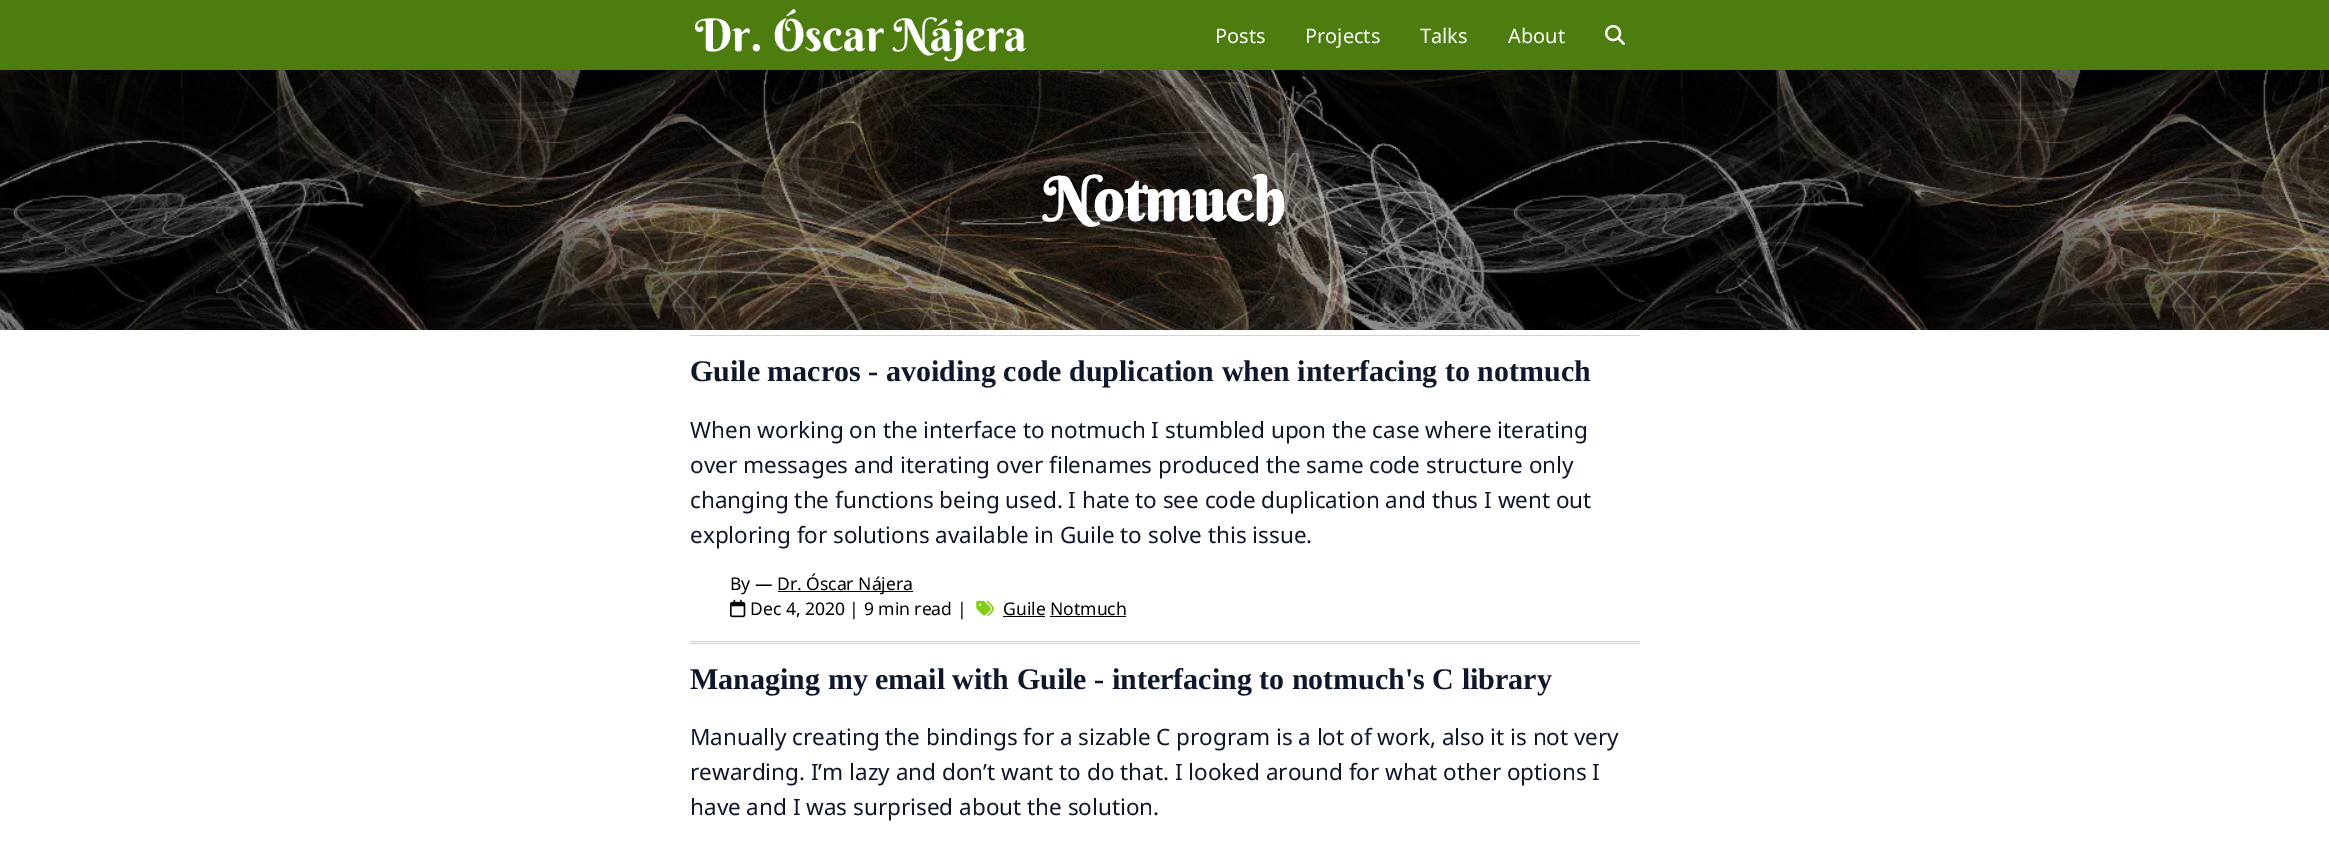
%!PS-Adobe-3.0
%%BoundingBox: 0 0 2329 845
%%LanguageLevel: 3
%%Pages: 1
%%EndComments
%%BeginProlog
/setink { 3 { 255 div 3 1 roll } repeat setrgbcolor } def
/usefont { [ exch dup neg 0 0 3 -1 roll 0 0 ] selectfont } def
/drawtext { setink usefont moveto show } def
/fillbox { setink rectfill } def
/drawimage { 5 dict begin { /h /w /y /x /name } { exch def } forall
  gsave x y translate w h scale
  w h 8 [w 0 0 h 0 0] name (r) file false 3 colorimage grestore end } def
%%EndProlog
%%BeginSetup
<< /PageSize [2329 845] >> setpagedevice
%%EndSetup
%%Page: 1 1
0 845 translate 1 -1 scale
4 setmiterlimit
0 0 2329 845 255 255 255 fillbox
0 0 2329 70 77 124 15 fillbox
(Dr. Óscar Nájera) 695 51 /BerkshireSwash-Regular 45 255 255 255 drawtext
(Posts) 1215 43 /NotoSans-Regular 20 255 255 255 drawtext
(Projects) 1305 43 /NotoSans-Regular 20 255 255 255 drawtext
(Talks) 1420 43 /NotoSans-Regular 20 255 255 255 drawtext
(About) 1508 43 /NotoSans-Regular 20 255 255 255 drawtext
(assets/img1.rgb) 1605 25 20 20 drawimage
(assets/img2.rgb) 0 70 2329 260 drawimage
(Notmuch) 1044 221 /BerkshireSwash-Bold 60 255 255 255 drawtext
690 335 950 1 203 213 225 fillbox
690 641 950 1 203 213 225 fillbox
(Guile macros - avoiding code duplication when interfacing to notmuch) 690 381 /LiberationSerif-Bold 30 15 23 42 drawtext
(When working on the interface to notmuch I stumbled upon the case where iterating) 690 438 /NotoSans-Regular 22.5 15 23 42 drawtext
(over messages and iterating over filenames produced the same code structure only) 690 473 /NotoSans-Regular 22.5 15 23 42 drawtext
(changing the functions being used. I hate to see code duplication and thus I went out) 690 508 /NotoSans-Regular 22.5 15 23 42 drawtext
(exploring for solutions available in Guile to solve this issue.) 690 543 /NotoSans-Regular 22.5 15 23 42 drawtext
(By —) 730 590 /NotoSans-Regular 17.5 0 0 0 drawtext
778 591 135 1 0 0 0 fillbox
(Dr. Óscar Nájera) 777 590 /NotoSans-Regular 17.5 0 0 0 drawtext
(assets/img3.rgb) 730 599 16 19 drawimage
(Dec 4, 2020 | 9 min read |) 750 615 /NotoSans-Regular 17.5 0 0 0 drawtext
(assets/img4.rgb) 976 600 18 16 drawimage
(Guile Notmuch) 1003 615 /NotoSans-Regular 17.5 0 0 0 drawtext
1003 616 42 1 0 0 0 fillbox
1050 616 76 1 0 0 0 fillbox
690 643 950 1 203 213 225 fillbox
(Managing my email with Guile - interfacing to notmuch's C library) 690 689 /LiberationSerif-Bold 30 15 23 42 drawtext
(Manually creating the bindings for a sizable C program is a lot of work, also it is not very) 690 745 /NotoSans-Regular 22.5 15 23 42 drawtext
(rewarding. I’m lazy and don’t want to do that. I looked around for what other options I) 690 780 /NotoSans-Regular 22.5 15 23 42 drawtext
(have and I was surprised about the solution.) 690 815 /NotoSans-Regular 22.5 15 23 42 drawtext
showpage
%%EOF
